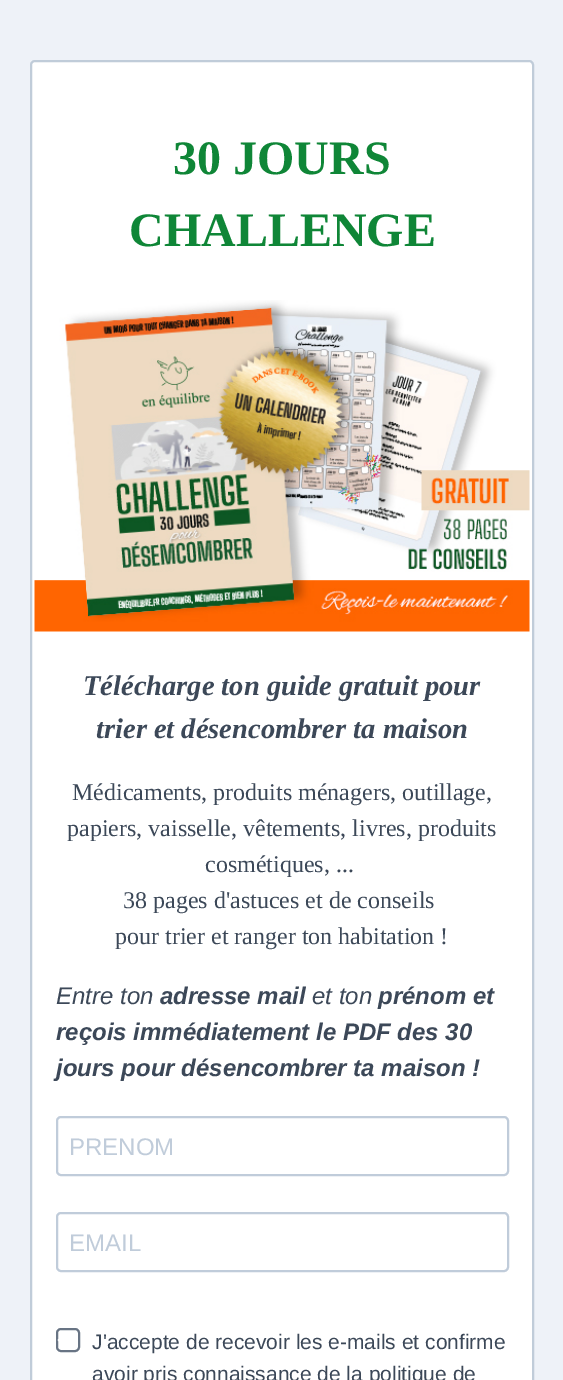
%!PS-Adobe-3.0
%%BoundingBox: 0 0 563 1380
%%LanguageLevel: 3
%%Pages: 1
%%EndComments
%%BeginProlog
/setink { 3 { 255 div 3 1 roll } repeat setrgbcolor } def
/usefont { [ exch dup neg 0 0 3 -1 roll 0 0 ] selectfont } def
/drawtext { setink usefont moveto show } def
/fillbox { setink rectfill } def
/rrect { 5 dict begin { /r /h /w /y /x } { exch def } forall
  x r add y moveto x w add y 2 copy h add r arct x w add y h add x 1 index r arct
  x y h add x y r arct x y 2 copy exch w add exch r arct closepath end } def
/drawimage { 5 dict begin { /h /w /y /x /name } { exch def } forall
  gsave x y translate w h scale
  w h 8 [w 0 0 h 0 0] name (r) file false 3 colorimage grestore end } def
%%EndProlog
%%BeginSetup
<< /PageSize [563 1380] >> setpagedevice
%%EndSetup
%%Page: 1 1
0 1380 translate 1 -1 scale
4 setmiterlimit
0 0 563 1380 238 242 248 fillbox
255 255 255 setink
31 61 502 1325 4 rrect gsave fill grestore
192 204 217 setink
2 setlinewidth
stroke
(30 JOURS) 173 174 /LiberationSerif-Bold 48 15 134 55 drawtext
(CHALLENGE) 129 246 /LiberationSerif-Bold 48 15 134 55 drawtext
(assets/img1.rgb) 34 300 496 332 drawimage
(Télécharge ton guide gratuit pour) 83 695 /LiberationSerif-BoldItalic 28.5 60 72 88 drawtext
(trier et désencombrer ta maison) 96 738 /LiberationSerif-BoldItalic 28.5 60 72 88 drawtext
(Médicaments, produits ménagers, outillage,) 72 800 /LiberationSerif-Regular 24 60 72 88 drawtext
(papiers, vaisselle, vêtements, livres, produits) 67 836 /LiberationSerif-Regular 24 60 72 88 drawtext
(cosmétiques, ...) 205 872 /LiberationSerif-Regular 24 60 72 88 drawtext
(38 pages d'astuces et de conseils) 123 908 /LiberationSerif-Regular 24 60 72 88 drawtext
(pour trier et ranger ton habitation !) 115 944 /LiberationSerif-Regular 24 60 72 88 drawtext
(Entre ton) 56 1004 /LiberationSans-Italic 24 60 72 88 drawtext
(adresse mail) 160 1004 /LiberationSans-BoldItalic 24 60 72 88 drawtext
(et ton) 312 1004 /LiberationSans-Italic 24 60 72 88 drawtext
(prénom et) 378 1004 /LiberationSans-BoldItalic 24 60 72 88 drawtext
(reçois immédiatement le PDF des 30) 56 1040 /LiberationSans-BoldItalic 24 60 72 88 drawtext
(jours pour désencombrer ta maison !) 56 1076 /LiberationSans-BoldItalic 24 60 72 88 drawtext
192 204 218 setink
57 1117 451 58 4 rrect stroke
(PRENOM) 69 1155 /LiberationSans-Regular 24 192 204 218 drawtext
57 1213 451 58 4 rrect stroke
(EMAIL) 69 1251 /LiberationSans-Regular 24 192 204 218 drawtext
104 116 132 setink
57 1329 22 22 4 rrect stroke
255 255 255 setink
60 1338 moveto 67.5 1345.5 lineto 65 1347.5 lineto 57.5 1340 lineto closepath fill
(J'accepte de recevoir les e-mails et confirme) 92 1349 /LiberationSans-Regular 21 60 72 88 drawtext
(avoir pris connaissance de la politique de) 92 1381 /LiberationSans-Regular 21 60 72 88 drawtext
showpage
%%EOF
